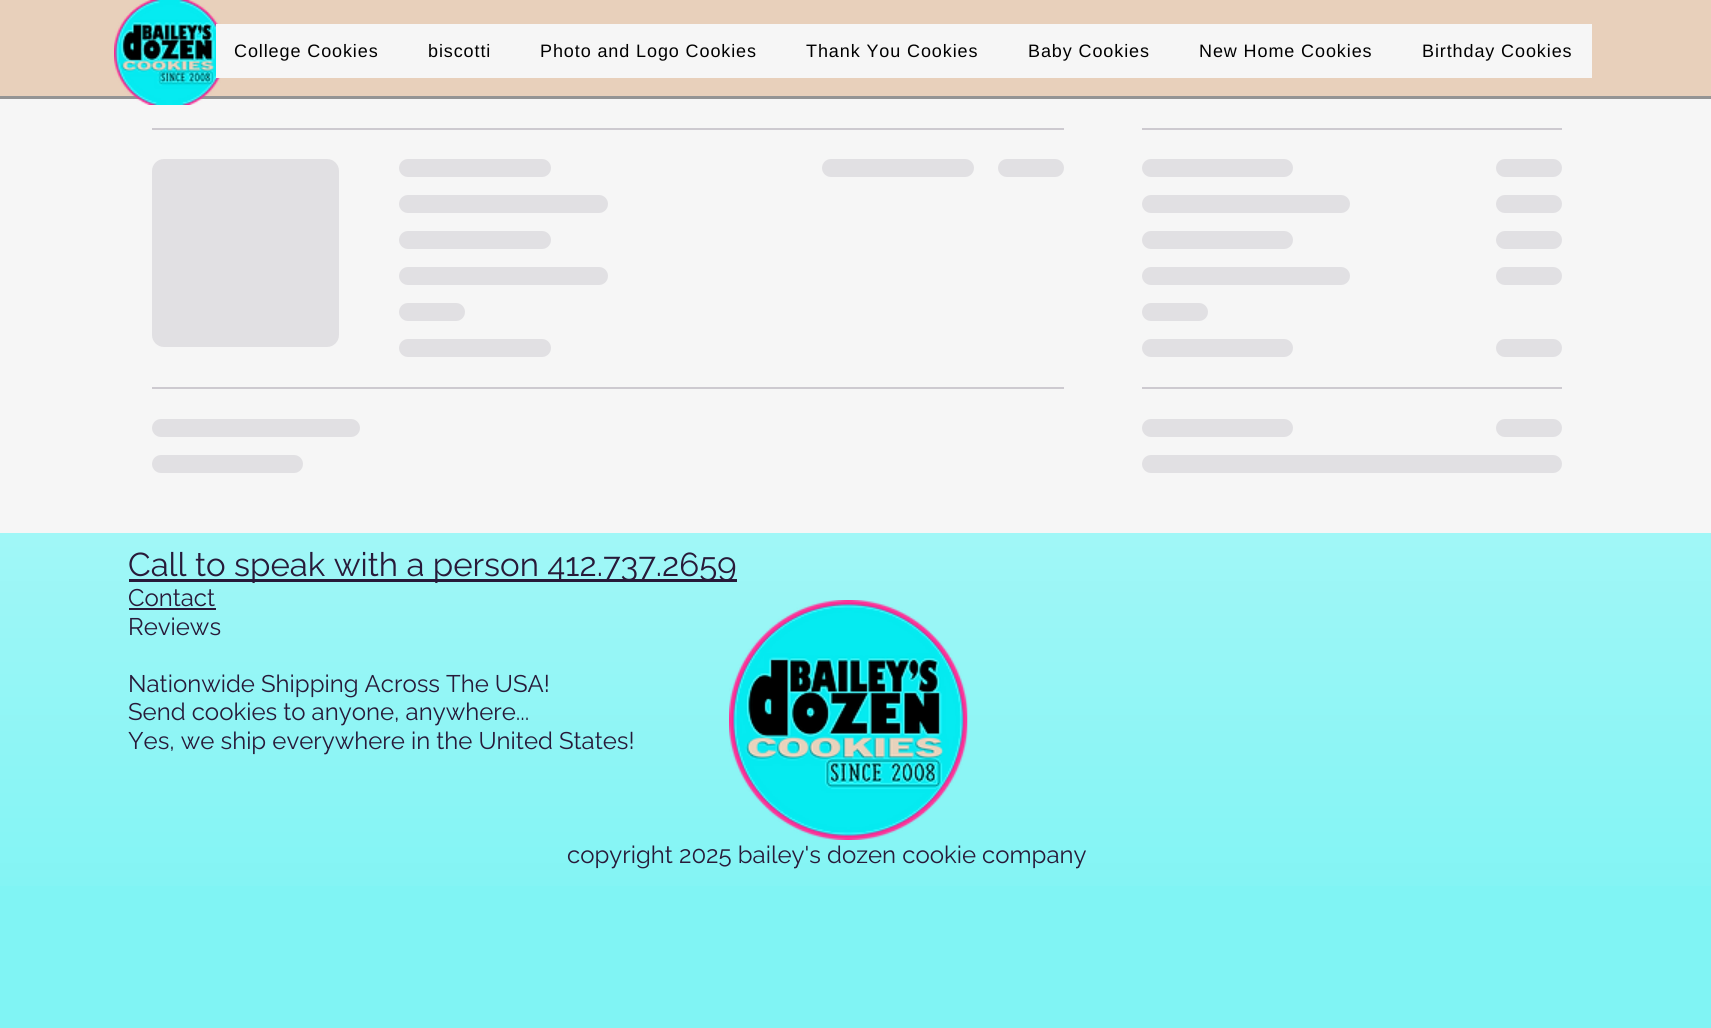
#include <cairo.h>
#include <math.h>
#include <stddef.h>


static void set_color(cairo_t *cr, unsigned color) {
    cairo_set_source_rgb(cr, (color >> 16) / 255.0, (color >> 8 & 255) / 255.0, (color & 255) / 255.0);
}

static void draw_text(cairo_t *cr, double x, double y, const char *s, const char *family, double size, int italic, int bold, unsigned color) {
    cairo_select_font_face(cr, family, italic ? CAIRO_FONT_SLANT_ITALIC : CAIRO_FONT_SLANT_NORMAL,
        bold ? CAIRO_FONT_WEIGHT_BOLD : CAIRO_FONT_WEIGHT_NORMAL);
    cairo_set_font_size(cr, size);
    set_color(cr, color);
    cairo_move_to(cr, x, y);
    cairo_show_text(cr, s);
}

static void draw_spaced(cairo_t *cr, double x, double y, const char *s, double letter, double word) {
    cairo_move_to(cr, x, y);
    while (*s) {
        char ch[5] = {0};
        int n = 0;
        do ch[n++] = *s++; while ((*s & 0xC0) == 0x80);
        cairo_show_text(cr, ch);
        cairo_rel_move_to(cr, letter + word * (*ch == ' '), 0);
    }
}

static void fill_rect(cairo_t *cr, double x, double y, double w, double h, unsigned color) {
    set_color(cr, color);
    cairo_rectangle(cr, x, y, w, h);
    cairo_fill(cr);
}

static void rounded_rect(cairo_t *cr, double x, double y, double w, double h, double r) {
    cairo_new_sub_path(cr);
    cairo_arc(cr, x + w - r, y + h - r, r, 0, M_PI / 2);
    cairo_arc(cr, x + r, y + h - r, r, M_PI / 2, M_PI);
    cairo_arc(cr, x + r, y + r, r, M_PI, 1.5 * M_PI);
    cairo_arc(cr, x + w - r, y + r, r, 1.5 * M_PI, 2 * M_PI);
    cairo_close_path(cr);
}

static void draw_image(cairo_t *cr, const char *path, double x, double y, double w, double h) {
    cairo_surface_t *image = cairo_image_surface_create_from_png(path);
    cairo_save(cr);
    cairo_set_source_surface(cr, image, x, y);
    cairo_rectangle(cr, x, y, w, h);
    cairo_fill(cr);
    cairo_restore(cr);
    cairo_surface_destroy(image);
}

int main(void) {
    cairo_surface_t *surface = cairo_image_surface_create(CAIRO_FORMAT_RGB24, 1711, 1028);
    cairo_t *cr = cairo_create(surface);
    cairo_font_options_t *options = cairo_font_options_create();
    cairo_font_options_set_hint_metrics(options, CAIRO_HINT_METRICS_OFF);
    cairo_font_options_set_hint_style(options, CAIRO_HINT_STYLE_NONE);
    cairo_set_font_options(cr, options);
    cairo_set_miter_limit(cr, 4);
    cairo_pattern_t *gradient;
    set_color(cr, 0xF6F6F6);
    cairo_paint(cr);
    fill_rect(cr, 0, 96, 1711, 3, 0x949494);
    fill_rect(cr, 0, 0, 1711, 96, 0xE8D0BB);
    draw_image(cr, "assets/img1.png", 114, 0, 107, 105);
    fill_rect(cr, 216, 24, 1376, 54, 0xF6F6F6);
    cairo_select_font_face(cr, "Liberation Sans", CAIRO_FONT_SLANT_NORMAL, CAIRO_FONT_WEIGHT_NORMAL);
    cairo_set_font_size(cr, 18);
    set_color(cr, 0x000000);
    draw_spaced(cr, 234, 57, "College Cookies", 0.9, 0);
    draw_spaced(cr, 428, 57, "biscotti", 0.9, 0);
    draw_spaced(cr, 540, 57, "Photo and Logo Cookies", 0.9, 0);
    draw_spaced(cr, 806, 57, "Thank You Cookies", 0.9, 0);
    draw_spaced(cr, 1028, 57, "Baby Cookies", 0.9, 0);
    draw_spaced(cr, 1199, 57, "New Home Cookies", 0.9, 0);
    draw_spaced(cr, 1422, 57, "Birthday Cookies", 0.9, 0);
    fill_rect(cr, 152, 128, 912, 2, 0xCDCAD0);
    gradient = cairo_pattern_create_linear(152, 253, 902, 253);
    cairo_pattern_add_color_stop_rgba(gradient, 0.25, 0.882, 0.878, 0.89, 1);
    cairo_pattern_add_color_stop_rgba(gradient, 0.37, 0.804, 0.792, 0.816, 1);
    cairo_pattern_add_color_stop_rgba(gradient, 0.63, 0.882, 0.878, 0.89, 1);
    cairo_set_source(cr, gradient);
    cairo_pattern_destroy(gradient);
    rounded_rect(cr, 152, 159, 187, 188, 12);
    cairo_fill(cr);
    gradient = cairo_pattern_create_linear(399, 168, 1005, 168);
    cairo_pattern_add_color_stop_rgba(gradient, 0.25, 0.882, 0.878, 0.89, 1);
    cairo_pattern_add_color_stop_rgba(gradient, 0.37, 0.804, 0.792, 0.816, 1);
    cairo_pattern_add_color_stop_rgba(gradient, 0.63, 0.882, 0.878, 0.89, 1);
    cairo_set_source(cr, gradient);
    cairo_pattern_destroy(gradient);
    rounded_rect(cr, 399, 159, 152, 18, 9);
    cairo_fill(cr);
    gradient = cairo_pattern_create_linear(399, 204, 1233, 204);
    cairo_pattern_add_color_stop_rgba(gradient, 0.25, 0.882, 0.878, 0.89, 1);
    cairo_pattern_add_color_stop_rgba(gradient, 0.37, 0.804, 0.792, 0.816, 1);
    cairo_pattern_add_color_stop_rgba(gradient, 0.63, 0.882, 0.878, 0.89, 1);
    cairo_set_source(cr, gradient);
    cairo_pattern_destroy(gradient);
    rounded_rect(cr, 399, 195, 209, 18, 9);
    cairo_fill(cr);
    gradient = cairo_pattern_create_linear(399, 240, 1005, 240);
    cairo_pattern_add_color_stop_rgba(gradient, 0.25, 0.882, 0.878, 0.89, 1);
    cairo_pattern_add_color_stop_rgba(gradient, 0.37, 0.804, 0.792, 0.816, 1);
    cairo_pattern_add_color_stop_rgba(gradient, 0.63, 0.882, 0.878, 0.89, 1);
    cairo_set_source(cr, gradient);
    cairo_pattern_destroy(gradient);
    rounded_rect(cr, 399, 231, 152, 18, 9);
    cairo_fill(cr);
    gradient = cairo_pattern_create_linear(399, 276, 1233, 276);
    cairo_pattern_add_color_stop_rgba(gradient, 0.25, 0.882, 0.878, 0.89, 1);
    cairo_pattern_add_color_stop_rgba(gradient, 0.37, 0.804, 0.792, 0.816, 1);
    cairo_pattern_add_color_stop_rgba(gradient, 0.63, 0.882, 0.878, 0.89, 1);
    cairo_set_source(cr, gradient);
    cairo_pattern_destroy(gradient);
    rounded_rect(cr, 399, 267, 209, 18, 9);
    cairo_fill(cr);
    gradient = cairo_pattern_create_linear(399, 312, 663, 312);
    cairo_pattern_add_color_stop_rgba(gradient, 0.25, 0.882, 0.878, 0.89, 1);
    cairo_pattern_add_color_stop_rgba(gradient, 0.37, 0.804, 0.792, 0.816, 1);
    cairo_pattern_add_color_stop_rgba(gradient, 0.63, 0.882, 0.878, 0.89, 1);
    cairo_set_source(cr, gradient);
    cairo_pattern_destroy(gradient);
    rounded_rect(cr, 399, 303, 66, 18, 9);
    cairo_fill(cr);
    gradient = cairo_pattern_create_linear(399, 348, 1005, 348);
    cairo_pattern_add_color_stop_rgba(gradient, 0.25, 0.882, 0.878, 0.89, 1);
    cairo_pattern_add_color_stop_rgba(gradient, 0.37, 0.804, 0.792, 0.816, 1);
    cairo_pattern_add_color_stop_rgba(gradient, 0.63, 0.882, 0.878, 0.89, 1);
    cairo_set_source(cr, gradient);
    cairo_pattern_destroy(gradient);
    rounded_rect(cr, 399, 339, 152, 18, 9);
    cairo_fill(cr);
    gradient = cairo_pattern_create_linear(822, 168, 1428, 168);
    cairo_pattern_add_color_stop_rgba(gradient, 0.25, 0.882, 0.878, 0.89, 1);
    cairo_pattern_add_color_stop_rgba(gradient, 0.37, 0.804, 0.792, 0.816, 1);
    cairo_pattern_add_color_stop_rgba(gradient, 0.63, 0.882, 0.878, 0.89, 1);
    cairo_set_source(cr, gradient);
    cairo_pattern_destroy(gradient);
    rounded_rect(cr, 822, 159, 152, 18, 9);
    cairo_fill(cr);
    gradient = cairo_pattern_create_linear(998, 168, 1262, 168);
    cairo_pattern_add_color_stop_rgba(gradient, 0.25, 0.882, 0.878, 0.89, 1);
    cairo_pattern_add_color_stop_rgba(gradient, 0.37, 0.804, 0.792, 0.816, 1);
    cairo_pattern_add_color_stop_rgba(gradient, 0.63, 0.882, 0.878, 0.89, 1);
    cairo_set_source(cr, gradient);
    cairo_pattern_destroy(gradient);
    rounded_rect(cr, 998, 159, 66, 18, 9);
    cairo_fill(cr);
    fill_rect(cr, 152, 387, 912, 2, 0xCDCAD0);
    gradient = cairo_pattern_create_linear(152, 428, 986, 428);
    cairo_pattern_add_color_stop_rgba(gradient, 0.25, 0.882, 0.878, 0.89, 1);
    cairo_pattern_add_color_stop_rgba(gradient, 0.37, 0.804, 0.792, 0.816, 1);
    cairo_pattern_add_color_stop_rgba(gradient, 0.63, 0.882, 0.878, 0.89, 1);
    cairo_set_source(cr, gradient);
    cairo_pattern_destroy(gradient);
    rounded_rect(cr, 152, 419, 208, 18, 9);
    cairo_fill(cr);
    gradient = cairo_pattern_create_linear(152, 464, 758, 464);
    cairo_pattern_add_color_stop_rgba(gradient, 0.25, 0.882, 0.878, 0.89, 1);
    cairo_pattern_add_color_stop_rgba(gradient, 0.37, 0.804, 0.792, 0.816, 1);
    cairo_pattern_add_color_stop_rgba(gradient, 0.63, 0.882, 0.878, 0.89, 1);
    cairo_set_source(cr, gradient);
    cairo_pattern_destroy(gradient);
    rounded_rect(cr, 152, 455, 151, 18, 9);
    cairo_fill(cr);
    fill_rect(cr, 1142, 128, 420, 2, 0xCDCAD0);
    gradient = cairo_pattern_create_linear(1142, 168, 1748, 168);
    cairo_pattern_add_color_stop_rgba(gradient, 0.25, 0.882, 0.878, 0.89, 1);
    cairo_pattern_add_color_stop_rgba(gradient, 0.37, 0.804, 0.792, 0.816, 1);
    cairo_pattern_add_color_stop_rgba(gradient, 0.63, 0.882, 0.878, 0.89, 1);
    cairo_set_source(cr, gradient);
    cairo_pattern_destroy(gradient);
    rounded_rect(cr, 1142, 159, 151, 18, 9);
    cairo_fill(cr);
    gradient = cairo_pattern_create_linear(1496, 168, 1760, 168);
    cairo_pattern_add_color_stop_rgba(gradient, 0.25, 0.882, 0.878, 0.89, 1);
    cairo_pattern_add_color_stop_rgba(gradient, 0.37, 0.804, 0.792, 0.816, 1);
    cairo_pattern_add_color_stop_rgba(gradient, 0.63, 0.882, 0.878, 0.89, 1);
    cairo_set_source(cr, gradient);
    cairo_pattern_destroy(gradient);
    rounded_rect(cr, 1496, 159, 66, 18, 9);
    cairo_fill(cr);
    gradient = cairo_pattern_create_linear(1142, 204, 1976, 204);
    cairo_pattern_add_color_stop_rgba(gradient, 0.25, 0.882, 0.878, 0.89, 1);
    cairo_pattern_add_color_stop_rgba(gradient, 0.37, 0.804, 0.792, 0.816, 1);
    cairo_pattern_add_color_stop_rgba(gradient, 0.63, 0.882, 0.878, 0.89, 1);
    cairo_set_source(cr, gradient);
    cairo_pattern_destroy(gradient);
    rounded_rect(cr, 1142, 195, 208, 18, 9);
    cairo_fill(cr);
    gradient = cairo_pattern_create_linear(1496, 204, 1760, 204);
    cairo_pattern_add_color_stop_rgba(gradient, 0.25, 0.882, 0.878, 0.89, 1);
    cairo_pattern_add_color_stop_rgba(gradient, 0.37, 0.804, 0.792, 0.816, 1);
    cairo_pattern_add_color_stop_rgba(gradient, 0.63, 0.882, 0.878, 0.89, 1);
    cairo_set_source(cr, gradient);
    cairo_pattern_destroy(gradient);
    rounded_rect(cr, 1496, 195, 66, 18, 9);
    cairo_fill(cr);
    gradient = cairo_pattern_create_linear(1142, 240, 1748, 240);
    cairo_pattern_add_color_stop_rgba(gradient, 0.25, 0.882, 0.878, 0.89, 1);
    cairo_pattern_add_color_stop_rgba(gradient, 0.37, 0.804, 0.792, 0.816, 1);
    cairo_pattern_add_color_stop_rgba(gradient, 0.63, 0.882, 0.878, 0.89, 1);
    cairo_set_source(cr, gradient);
    cairo_pattern_destroy(gradient);
    rounded_rect(cr, 1142, 231, 151, 18, 9);
    cairo_fill(cr);
    gradient = cairo_pattern_create_linear(1496, 240, 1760, 240);
    cairo_pattern_add_color_stop_rgba(gradient, 0.25, 0.882, 0.878, 0.89, 1);
    cairo_pattern_add_color_stop_rgba(gradient, 0.37, 0.804, 0.792, 0.816, 1);
    cairo_pattern_add_color_stop_rgba(gradient, 0.63, 0.882, 0.878, 0.89, 1);
    cairo_set_source(cr, gradient);
    cairo_pattern_destroy(gradient);
    rounded_rect(cr, 1496, 231, 66, 18, 9);
    cairo_fill(cr);
    gradient = cairo_pattern_create_linear(1142, 276, 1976, 276);
    cairo_pattern_add_color_stop_rgba(gradient, 0.25, 0.882, 0.878, 0.89, 1);
    cairo_pattern_add_color_stop_rgba(gradient, 0.37, 0.804, 0.792, 0.816, 1);
    cairo_pattern_add_color_stop_rgba(gradient, 0.63, 0.882, 0.878, 0.89, 1);
    cairo_set_source(cr, gradient);
    cairo_pattern_destroy(gradient);
    rounded_rect(cr, 1142, 267, 208, 18, 9);
    cairo_fill(cr);
    gradient = cairo_pattern_create_linear(1496, 276, 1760, 276);
    cairo_pattern_add_color_stop_rgba(gradient, 0.25, 0.882, 0.878, 0.89, 1);
    cairo_pattern_add_color_stop_rgba(gradient, 0.37, 0.804, 0.792, 0.816, 1);
    cairo_pattern_add_color_stop_rgba(gradient, 0.63, 0.882, 0.878, 0.89, 1);
    cairo_set_source(cr, gradient);
    cairo_pattern_destroy(gradient);
    rounded_rect(cr, 1496, 267, 66, 18, 9);
    cairo_fill(cr);
    gradient = cairo_pattern_create_linear(1142, 312, 1406, 312);
    cairo_pattern_add_color_stop_rgba(gradient, 0.25, 0.882, 0.878, 0.89, 1);
    cairo_pattern_add_color_stop_rgba(gradient, 0.37, 0.804, 0.792, 0.816, 1);
    cairo_pattern_add_color_stop_rgba(gradient, 0.63, 0.882, 0.878, 0.89, 1);
    cairo_set_source(cr, gradient);
    cairo_pattern_destroy(gradient);
    rounded_rect(cr, 1142, 303, 66, 18, 9);
    cairo_fill(cr);
    gradient = cairo_pattern_create_linear(1142, 348, 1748, 348);
    cairo_pattern_add_color_stop_rgba(gradient, 0.25, 0.882, 0.878, 0.89, 1);
    cairo_pattern_add_color_stop_rgba(gradient, 0.37, 0.804, 0.792, 0.816, 1);
    cairo_pattern_add_color_stop_rgba(gradient, 0.63, 0.882, 0.878, 0.89, 1);
    cairo_set_source(cr, gradient);
    cairo_pattern_destroy(gradient);
    rounded_rect(cr, 1142, 339, 151, 18, 9);
    cairo_fill(cr);
    gradient = cairo_pattern_create_linear(1496, 348, 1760, 348);
    cairo_pattern_add_color_stop_rgba(gradient, 0.25, 0.882, 0.878, 0.89, 1);
    cairo_pattern_add_color_stop_rgba(gradient, 0.37, 0.804, 0.792, 0.816, 1);
    cairo_pattern_add_color_stop_rgba(gradient, 0.63, 0.882, 0.878, 0.89, 1);
    cairo_set_source(cr, gradient);
    cairo_pattern_destroy(gradient);
    rounded_rect(cr, 1496, 339, 66, 18, 9);
    cairo_fill(cr);
    fill_rect(cr, 1142, 387, 420, 2, 0xCDCAD0);
    gradient = cairo_pattern_create_linear(1142, 428, 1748, 428);
    cairo_pattern_add_color_stop_rgba(gradient, 0.25, 0.882, 0.878, 0.89, 1);
    cairo_pattern_add_color_stop_rgba(gradient, 0.37, 0.804, 0.792, 0.816, 1);
    cairo_pattern_add_color_stop_rgba(gradient, 0.63, 0.882, 0.878, 0.89, 1);
    cairo_set_source(cr, gradient);
    cairo_pattern_destroy(gradient);
    rounded_rect(cr, 1142, 419, 151, 18, 9);
    cairo_fill(cr);
    gradient = cairo_pattern_create_linear(1496, 428, 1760, 428);
    cairo_pattern_add_color_stop_rgba(gradient, 0.25, 0.882, 0.878, 0.89, 1);
    cairo_pattern_add_color_stop_rgba(gradient, 0.37, 0.804, 0.792, 0.816, 1);
    cairo_pattern_add_color_stop_rgba(gradient, 0.63, 0.882, 0.878, 0.89, 1);
    cairo_set_source(cr, gradient);
    cairo_pattern_destroy(gradient);
    rounded_rect(cr, 1496, 419, 66, 18, 9);
    cairo_fill(cr);
    gradient = cairo_pattern_create_linear(1142, 464, 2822, 463);
    cairo_pattern_add_color_stop_rgba(gradient, 0.25, 0.882, 0.878, 0.89, 1);
    cairo_pattern_add_color_stop_rgba(gradient, 0.37, 0.804, 0.792, 0.816, 1);
    cairo_pattern_add_color_stop_rgba(gradient, 0.63, 0.882, 0.878, 0.89, 1);
    cairo_set_source(cr, gradient);
    cairo_pattern_destroy(gradient);
    rounded_rect(cr, 1142, 455, 420, 18, 9);
    cairo_fill(cr);
    fill_rect(cr, 0, 533, 1711, 495, 0x80F4F4);
    draw_image(cr, "assets/img2.png", 0, 533, 1711, 353);
    fill_rect(cr, 129, 579, 608, 3, 0x281A39);
    draw_text(cr, 128, 576, "Call to speak with a person 412.737.2659", "Raleway", 33, 0, 0, 0x281A39);
    draw_text(cr, 128, 606, "Contact", "Raleway", 24, 0, 0, 0x281A39);
    fill_rect(cr, 129, 608, 87, 2, 0x281A39);
    draw_text(cr, 128, 635, "Reviews", "Raleway", 24, 0, 0, 0x281A39);
    draw_text(cr, 128, 692, "Nationwide Shipping Across The USA!", "Raleway", 24, 0, 0, 0x281A39);
    draw_text(cr, 128, 720, "Send cookies to anyone, anywhere...", "Raleway", 24, 0, 0, 0x281A39);
    draw_text(cr, 128, 749, "Yes, we ship everywhere in the United States!", "Raleway", 24, 0, 0, 0x281A39);
    draw_image(cr, "assets/img3.png", 729, 600, 239, 240);
    draw_text(cr, 567, 863, "copyright 2025 bailey's dozen cookie company", "Raleway", 24, 0, 0, 0x281A39);
    cairo_surface_write_to_png(surface, "output.png");
    cairo_font_options_destroy(options);
    cairo_destroy(cr);
    cairo_surface_destroy(surface);
    return 0;
}
